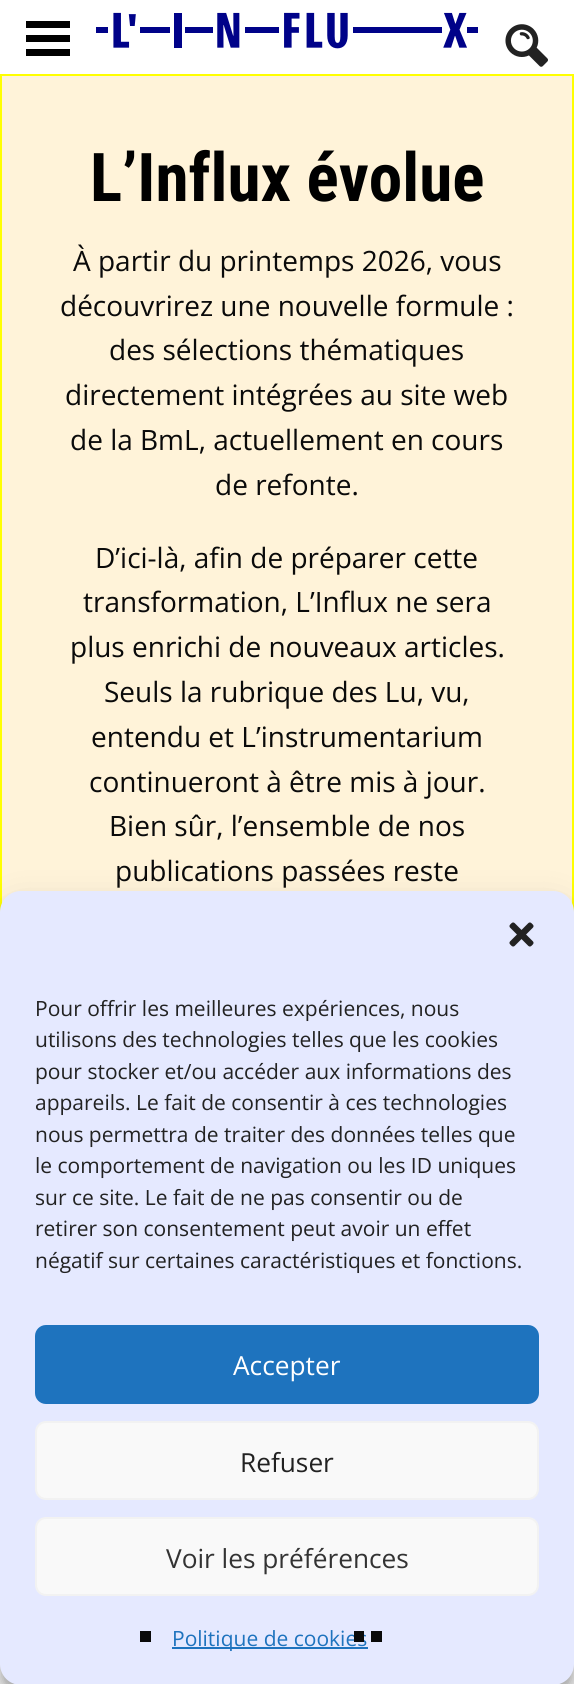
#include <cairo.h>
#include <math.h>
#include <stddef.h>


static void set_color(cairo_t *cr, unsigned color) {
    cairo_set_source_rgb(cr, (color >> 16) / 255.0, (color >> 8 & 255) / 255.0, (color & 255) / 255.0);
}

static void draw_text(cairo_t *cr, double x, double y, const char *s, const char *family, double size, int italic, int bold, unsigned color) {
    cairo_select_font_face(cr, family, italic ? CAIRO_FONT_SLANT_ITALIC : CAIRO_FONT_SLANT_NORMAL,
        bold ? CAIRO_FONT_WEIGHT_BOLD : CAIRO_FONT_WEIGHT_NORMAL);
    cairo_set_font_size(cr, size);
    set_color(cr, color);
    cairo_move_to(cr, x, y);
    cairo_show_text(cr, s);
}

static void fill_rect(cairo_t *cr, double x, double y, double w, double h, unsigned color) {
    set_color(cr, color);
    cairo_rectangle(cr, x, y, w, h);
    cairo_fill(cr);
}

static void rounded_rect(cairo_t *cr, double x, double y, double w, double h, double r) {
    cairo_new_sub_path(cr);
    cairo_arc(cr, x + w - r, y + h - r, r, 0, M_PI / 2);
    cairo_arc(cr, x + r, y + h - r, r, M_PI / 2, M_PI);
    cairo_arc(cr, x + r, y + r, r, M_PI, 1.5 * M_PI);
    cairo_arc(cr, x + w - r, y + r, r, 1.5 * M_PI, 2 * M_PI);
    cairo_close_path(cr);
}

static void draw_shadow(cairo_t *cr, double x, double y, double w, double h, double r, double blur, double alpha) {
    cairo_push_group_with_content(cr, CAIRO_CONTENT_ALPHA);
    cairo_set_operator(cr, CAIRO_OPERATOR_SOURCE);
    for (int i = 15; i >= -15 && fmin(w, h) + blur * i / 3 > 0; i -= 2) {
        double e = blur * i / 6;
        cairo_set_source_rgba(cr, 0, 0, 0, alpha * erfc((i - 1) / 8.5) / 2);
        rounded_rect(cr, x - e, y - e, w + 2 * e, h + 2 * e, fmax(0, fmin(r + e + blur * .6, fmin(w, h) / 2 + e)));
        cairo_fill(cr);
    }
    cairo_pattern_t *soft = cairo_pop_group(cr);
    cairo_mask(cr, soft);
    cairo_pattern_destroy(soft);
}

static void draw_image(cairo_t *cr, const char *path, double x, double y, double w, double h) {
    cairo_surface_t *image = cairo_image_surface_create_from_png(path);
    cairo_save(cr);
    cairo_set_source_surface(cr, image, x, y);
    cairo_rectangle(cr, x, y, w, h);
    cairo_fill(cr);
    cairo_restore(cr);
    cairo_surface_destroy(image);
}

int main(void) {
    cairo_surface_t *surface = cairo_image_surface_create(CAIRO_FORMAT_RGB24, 574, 1684);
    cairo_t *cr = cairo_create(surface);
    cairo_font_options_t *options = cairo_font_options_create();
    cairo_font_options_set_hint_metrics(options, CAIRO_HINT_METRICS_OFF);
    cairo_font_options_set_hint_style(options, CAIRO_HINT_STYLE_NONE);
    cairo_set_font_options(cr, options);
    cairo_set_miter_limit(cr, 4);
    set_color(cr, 0xFFFFFF);
    cairo_paint(cr);
    set_color(cr, 0x000000);
    cairo_set_fill_rule(cr, CAIRO_FILL_RULE_EVEN_ODD);
    cairo_new_path(cr);
    cairo_move_to(cr, 26, 21);
    cairo_line_to(cr, 70, 21);
    cairo_line_to(cr, 70, 28);
    cairo_line_to(cr, 26, 28);
    cairo_close_path(cr);
    cairo_move_to(cr, 26, 35);
    cairo_line_to(cr, 70, 35);
    cairo_line_to(cr, 70, 42);
    cairo_line_to(cr, 26, 42);
    cairo_close_path(cr);
    cairo_move_to(cr, 26, 49);
    cairo_line_to(cr, 70, 49);
    cairo_line_to(cr, 70, 56);
    cairo_line_to(cr, 26, 56);
    cairo_close_path(cr);
    cairo_fill(cr);
    draw_image(cr, "assets/img1.png", 96, 12, 382, 37);
    draw_image(cr, "assets/img2.png", 505, 24, 43, 43);
    fill_rect(cr, 2, 76, 570, 827, 0xFFF3D9);
    cairo_rectangle(cr, 1, 75, 572, 1111);
    set_color(cr, 0xFFFF00);
    cairo_stroke(cr);
    draw_text(cr, 90, 201, "L’Influx évolue", "Roboto Condensed", 67.25, 0, 1, 0x000000);
    draw_text(cr, 73, 271, "À partir du printemps 2026, vous", "Open Sans", 28, 0, 0, 0x0A0A0A);
    draw_text(cr, 60, 316, "découvrirez une nouvelle formule :", "Open Sans", 28, 0, 0, 0x0A0A0A);
    draw_text(cr, 109, 360, "des sélections thématiques", "Open Sans", 28, 0, 0, 0x0A0A0A);
    draw_text(cr, 65, 405, "directement intégrées au site web", "Open Sans", 28, 0, 0, 0x0A0A0A);
    draw_text(cr, 70, 450, "de la BmL, actuellement en cours", "Open Sans", 28, 0, 0, 0x0A0A0A);
    draw_text(cr, 215, 495, "de refonte.", "Open Sans", 28, 0, 0, 0x0A0A0A);
    draw_text(cr, 95, 568, "D’ici-là, afin de préparer cette", "Open Sans", 28, 0, 0, 0x0A0A0A);
    draw_text(cr, 83, 612, "transformation, L’Influx ne sera", "Open Sans", 28, 0, 0, 0x0A0A0A);
    draw_text(cr, 70, 657, "plus enrichi de nouveaux articles.", "Open Sans", 28, 0, 0, 0x0A0A0A);
    draw_text(cr, 104, 702, "Seuls la rubrique des Lu, vu,", "Open Sans", 28, 0, 0, 0x0A0A0A);
    draw_text(cr, 91, 747, "entendu et L’instrumentarium", "Open Sans", 28, 0, 0, 0x0A0A0A);
    draw_text(cr, 89, 792, "continueront à être mis à jour.", "Open Sans", 28, 0, 0, 0x0A0A0A);
    draw_text(cr, 109, 836, "Bien sûr, l’ensemble de nos", "Open Sans", 28, 0, 0, 0x0A0A0A);
    draw_text(cr, 115, 881, "publications passées reste", "Open Sans", 28, 0, 0, 0x0A0A0A);
    set_color(cr, 0x000000);
    draw_shadow(cr, 0, 901, 574, 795, 21, 5, 0.23);
    draw_shadow(cr, 0, 908, 574, 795, 21, 17.5, 0.19);
    set_color(cr, 0x808080);
    draw_shadow(cr, 452, 1556, 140, 105, 4, 4.5, 1);
    set_color(cr, 0xE5E9FF);
    rounded_rect(cr, 0, 891, 574, 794, 21);
    cairo_fill(cr);
    draw_image(cr, "assets/img3.png", 509, 922, 25, 25);
    draw_text(cr, 35, 1016, "Pour offrir les meilleures expériences, nous", "Open Sans", 21, 0, 0, 0x222222);
    draw_text(cr, 35, 1047, "utilisons des technologies telles que les cookies", "Open Sans", 21, 0, 0, 0x222222);
    draw_text(cr, 35, 1079, "pour stocker et/ou accéder aux informations des", "Open Sans", 21, 0, 0, 0x222222);
    draw_text(cr, 35, 1110, "appareils. Le fait de consentir à ces technologies", "Open Sans", 21, 0, 0, 0x222222);
    draw_text(cr, 35, 1142, "nous permettra de traiter des données telles que", "Open Sans", 21, 0, 0, 0x222222);
    draw_text(cr, 35, 1173, "le comportement de navigation ou les ID uniques", "Open Sans", 21, 0, 0, 0x222222);
    draw_text(cr, 35, 1205, "sur ce site. Le fait de ne pas consentir ou de", "Open Sans", 21, 0, 0, 0x222222);
    draw_text(cr, 35, 1236, "retirer son consentement peut avoir un effet", "Open Sans", 21, 0, 0, 0x222222);
    draw_text(cr, 35, 1268, "négatif sur certaines caractéristiques et fonctions.", "Open Sans", 21, 0, 0, 0x222222);
    set_color(cr, 0x1E73BE);
    rounded_rect(cr, 36, 1326, 502, 77, 10);
    cairo_fill_preserve(cr);
    cairo_stroke(cr);
    draw_text(cr, 233, 1375, "Accepter", "Open Sans", 26.25, 0, 0, 0xFFFFFF);
    set_color(cr, 0xF9F9F9);
    rounded_rect(cr, 36, 1422, 502, 77, 10);
    cairo_fill_preserve(cr);
    set_color(cr, 0xF2F2F2);
    cairo_stroke(cr);
    draw_text(cr, 240, 1472, "Refuser", "Open Sans", 26.25, 0, 0, 0x222222);
    set_color(cr, 0xF9F9F9);
    rounded_rect(cr, 36, 1518, 502, 77, 10);
    cairo_fill_preserve(cr);
    set_color(cr, 0xF2F2F2);
    cairo_stroke(cr);
    draw_text(cr, 166, 1568, "Voir les préférences", "Open Sans", 26.25, 0, 0, 0x333333);
    fill_rect(cr, 140, 1631, 11, 11, 0x0A0A0A);
    fill_rect(cr, 172, 1647, 196, 2, 0x1E73BE);
    draw_text(cr, 172, 1646, "Politique de cookies", "Open Sans", 21, 0, 0, 0x1E73BE);
    fill_rect(cr, 354, 1631, 10, 11, 0x0A0A0A);
    fill_rect(cr, 371, 1631, 11, 11, 0x0A0A0A);
    cairo_surface_write_to_png(surface, "output.png");
    cairo_font_options_destroy(options);
    cairo_destroy(cr);
    cairo_surface_destroy(surface);
    return 0;
}
